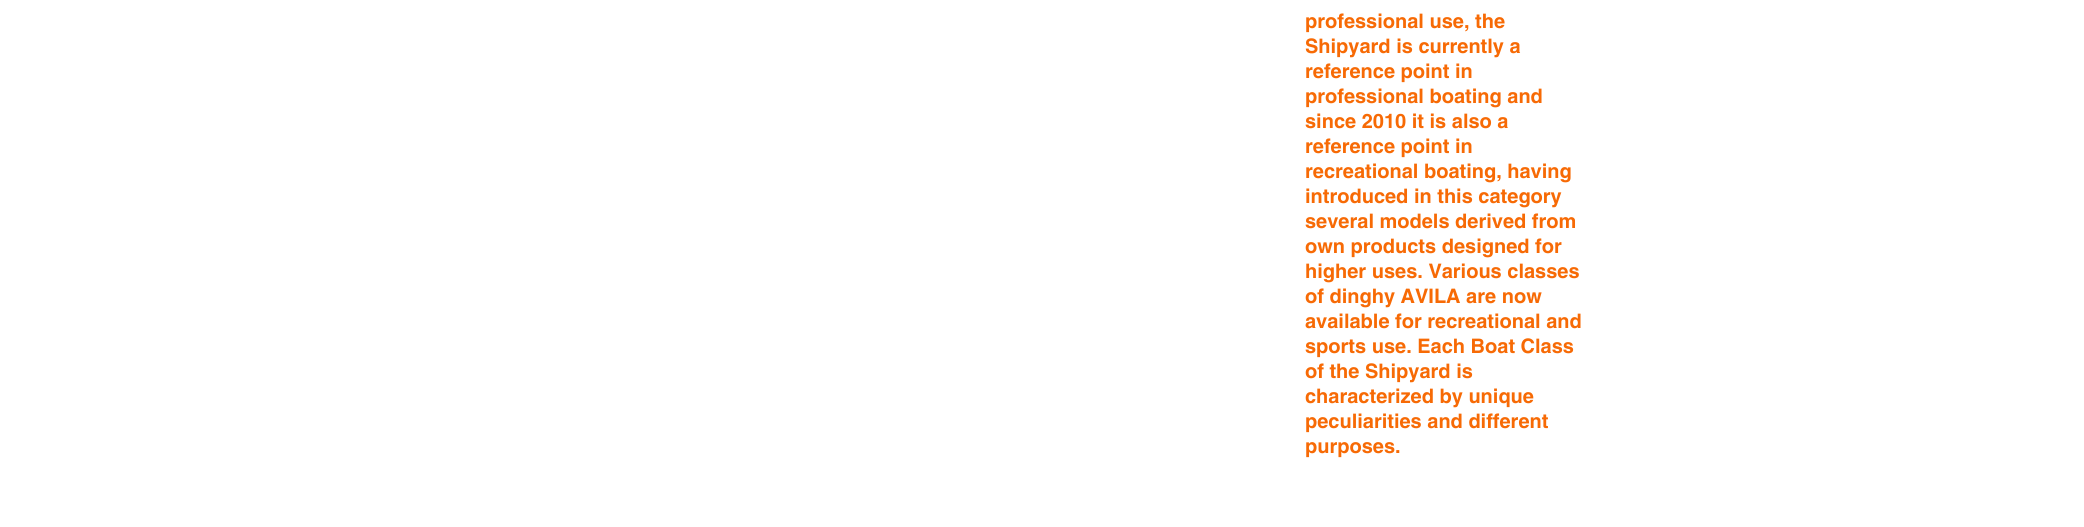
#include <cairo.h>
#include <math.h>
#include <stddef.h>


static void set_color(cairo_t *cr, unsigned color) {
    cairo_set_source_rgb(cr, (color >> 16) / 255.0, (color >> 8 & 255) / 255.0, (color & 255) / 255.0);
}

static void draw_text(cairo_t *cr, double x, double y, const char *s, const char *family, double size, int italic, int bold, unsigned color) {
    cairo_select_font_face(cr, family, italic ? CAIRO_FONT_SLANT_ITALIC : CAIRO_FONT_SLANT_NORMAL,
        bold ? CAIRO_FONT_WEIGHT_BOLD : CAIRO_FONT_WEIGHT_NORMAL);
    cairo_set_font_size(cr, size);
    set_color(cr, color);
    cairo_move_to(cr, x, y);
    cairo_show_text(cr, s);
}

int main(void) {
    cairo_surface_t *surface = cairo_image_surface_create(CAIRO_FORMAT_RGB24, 2084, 527);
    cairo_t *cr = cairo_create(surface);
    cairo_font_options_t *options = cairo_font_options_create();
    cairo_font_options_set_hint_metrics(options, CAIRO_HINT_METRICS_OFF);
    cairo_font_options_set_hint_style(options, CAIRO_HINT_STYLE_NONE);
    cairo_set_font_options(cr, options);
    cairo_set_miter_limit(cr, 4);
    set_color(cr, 0xFFFFFF);
    cairo_paint(cr);
    draw_text(cr, 1305, 28, "professional use, the", "helvetica", 20, 0, 1, 0xF76A05);
    draw_text(cr, 1305, 53, "Shipyard is currently a", "helvetica", 20, 0, 1, 0xF76A05);
    draw_text(cr, 1305, 78, "reference point in", "helvetica", 20, 0, 1, 0xF76A05);
    draw_text(cr, 1305, 103, "professional boating and", "helvetica", 20, 0, 1, 0xF76A05);
    draw_text(cr, 1305, 128, "since 2010 it is also a", "helvetica", 20, 0, 1, 0xF76A05);
    draw_text(cr, 1305, 153, "reference point in", "helvetica", 20, 0, 1, 0xF76A05);
    draw_text(cr, 1305, 178, "recreational boating, having", "helvetica", 20, 0, 1, 0xF76A05);
    draw_text(cr, 1305, 203, "introduced in this category", "helvetica", 20, 0, 1, 0xF76A05);
    draw_text(cr, 1305, 228, "several models derived from", "helvetica", 20, 0, 1, 0xF76A05);
    draw_text(cr, 1305, 253, "own products designed for", "helvetica", 20, 0, 1, 0xF76A05);
    draw_text(cr, 1305, 278, "higher uses. Various classes", "helvetica", 20, 0, 1, 0xF76A05);
    draw_text(cr, 1305, 303, "of dinghy AVILA are now", "helvetica", 20, 0, 1, 0xF76A05);
    draw_text(cr, 1305, 328, "available for recreational and", "helvetica", 20, 0, 1, 0xF76A05);
    draw_text(cr, 1305, 353, "sports use. Each Boat Class", "helvetica", 20, 0, 1, 0xF76A05);
    draw_text(cr, 1305, 378, "of the Shipyard is", "helvetica", 20, 0, 1, 0xF76A05);
    draw_text(cr, 1305, 403, "characterized by unique", "helvetica", 20, 0, 1, 0xF76A05);
    draw_text(cr, 1305, 428, "peculiarities and different", "helvetica", 20, 0, 1, 0xF76A05);
    draw_text(cr, 1305, 453, "purposes.", "helvetica", 20, 0, 1, 0xF76A05);
    cairo_surface_write_to_png(surface, "output.png");
    cairo_font_options_destroy(options);
    cairo_destroy(cr);
    cairo_surface_destroy(surface);
    return 0;
}
